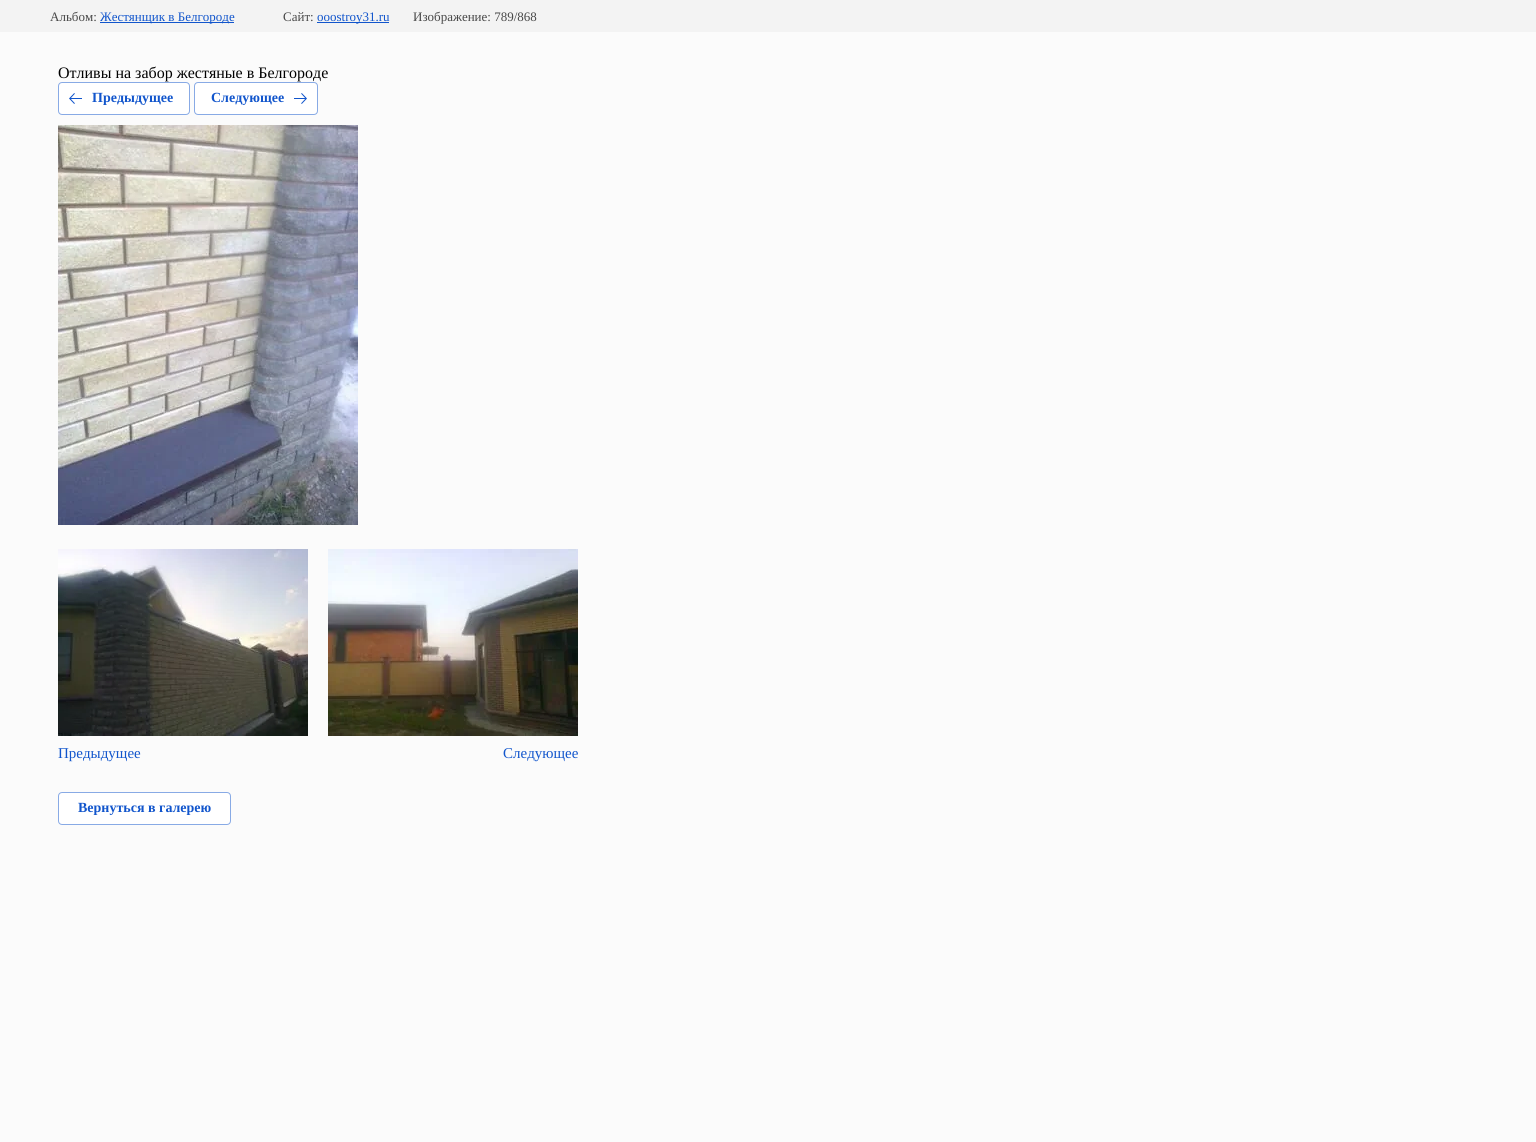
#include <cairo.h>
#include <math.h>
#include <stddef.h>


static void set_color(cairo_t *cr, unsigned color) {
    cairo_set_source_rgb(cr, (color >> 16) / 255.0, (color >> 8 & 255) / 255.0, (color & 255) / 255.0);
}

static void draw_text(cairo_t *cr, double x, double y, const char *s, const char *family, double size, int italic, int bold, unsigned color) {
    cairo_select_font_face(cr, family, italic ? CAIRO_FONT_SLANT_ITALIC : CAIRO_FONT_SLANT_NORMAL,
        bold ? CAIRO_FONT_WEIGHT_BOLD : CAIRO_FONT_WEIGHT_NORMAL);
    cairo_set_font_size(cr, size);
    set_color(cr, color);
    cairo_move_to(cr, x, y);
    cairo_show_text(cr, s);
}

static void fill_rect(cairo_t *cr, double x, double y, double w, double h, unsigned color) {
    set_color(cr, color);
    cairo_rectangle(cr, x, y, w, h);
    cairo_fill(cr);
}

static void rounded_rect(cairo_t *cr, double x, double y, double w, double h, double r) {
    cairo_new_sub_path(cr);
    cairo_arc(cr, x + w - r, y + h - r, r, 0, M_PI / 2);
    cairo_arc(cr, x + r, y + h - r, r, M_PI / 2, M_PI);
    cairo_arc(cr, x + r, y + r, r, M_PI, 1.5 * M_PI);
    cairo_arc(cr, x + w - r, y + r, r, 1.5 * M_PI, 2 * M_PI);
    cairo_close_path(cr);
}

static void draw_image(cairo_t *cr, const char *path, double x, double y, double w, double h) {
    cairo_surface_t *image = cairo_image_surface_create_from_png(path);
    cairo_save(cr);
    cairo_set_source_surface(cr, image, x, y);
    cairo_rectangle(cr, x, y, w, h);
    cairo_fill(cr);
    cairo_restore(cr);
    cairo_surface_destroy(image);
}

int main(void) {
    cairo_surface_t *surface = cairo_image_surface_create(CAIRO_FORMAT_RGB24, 1536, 1142);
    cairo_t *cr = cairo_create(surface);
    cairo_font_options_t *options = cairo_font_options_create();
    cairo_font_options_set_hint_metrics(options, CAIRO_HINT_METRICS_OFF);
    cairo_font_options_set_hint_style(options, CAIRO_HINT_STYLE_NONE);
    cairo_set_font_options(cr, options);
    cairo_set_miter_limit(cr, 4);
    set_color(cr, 0xFBFBFB);
    cairo_paint(cr);
    fill_rect(cr, 0, 0, 1536, 32, 0xF3F3F3);
    draw_text(cr, 50, 21, "Альбом:", "Liberation Serif", 13, 0, 0, 0x484848);
    fill_rect(cr, 100, 22, 134, 1, 0x1155CC);
    draw_text(cr, 100, 21, "Жестянщик в Белгороде", "Liberation Serif", 13, 0, 0, 0x1155CC);
    draw_text(cr, 283, 21, "Сайт:", "Liberation Serif", 13, 0, 0, 0x484848);
    fill_rect(cr, 317, 22, 72, 1, 0x1155CC);
    draw_text(cr, 317, 21, "ooostroy31.ru", "Liberation Serif", 13, 0, 0, 0x1155CC);
    draw_text(cr, 413, 21, "Изображение: 789/868", "Liberation Serif", 13, 0, 0, 0x484848);
    draw_text(cr, 58, 78, "Отливы на забор жестяные в Белгороде", "Liberation Serif", 16, 0, 0, 0x000000);
    set_color(cr, 0xFFFFFF);
    rounded_rect(cr, 58.5, 82.5, 131, 32, 3.5);
    cairo_fill_preserve(cr);
    set_color(cr, 0x88AAE5);
    cairo_set_line_width(cr, 1);
    cairo_stroke(cr);
    draw_image(cr, "assets/img1.png", 69, 93, 13, 11);
    draw_text(cr, 92, 102, "Предыдущее", "Liberation Serif", 14, 0, 1, 0x1155CC);
    set_color(cr, 0xFFFFFF);
    rounded_rect(cr, 194.5, 82.5, 123, 32, 3.5);
    cairo_fill_preserve(cr);
    set_color(cr, 0x88AAE5);
    cairo_stroke(cr);
    draw_text(cr, 211, 102, "Следующее", "Liberation Serif", 14, 0, 1, 0x1155CC);
    draw_image(cr, "assets/img2.png", 294, 93, 13, 11);
    draw_image(cr, "assets/img3.png", 58, 125, 300, 400);
    draw_image(cr, "assets/img4.png", 58, 549, 250, 187);
    draw_text(cr, 58, 758, "Предыдущее", "Liberation Serif", 15, 0, 0, 0x1155CC);
    draw_image(cr, "assets/img5.png", 328, 549, 250, 187);
    draw_text(cr, 503, 758, "Следующее", "Liberation Serif", 15, 0, 0, 0x1155CC);
    set_color(cr, 0xFFFFFF);
    rounded_rect(cr, 58.5, 792.5, 172, 32, 3.5);
    cairo_fill_preserve(cr);
    set_color(cr, 0x88AAE5);
    cairo_stroke(cr);
    draw_text(cr, 78, 812, "Вернуться в галерею", "Liberation Serif", 14, 0, 1, 0x1155CC);
    cairo_surface_write_to_png(surface, "output.png");
    cairo_font_options_destroy(options);
    cairo_destroy(cr);
    cairo_surface_destroy(surface);
    return 0;
}
